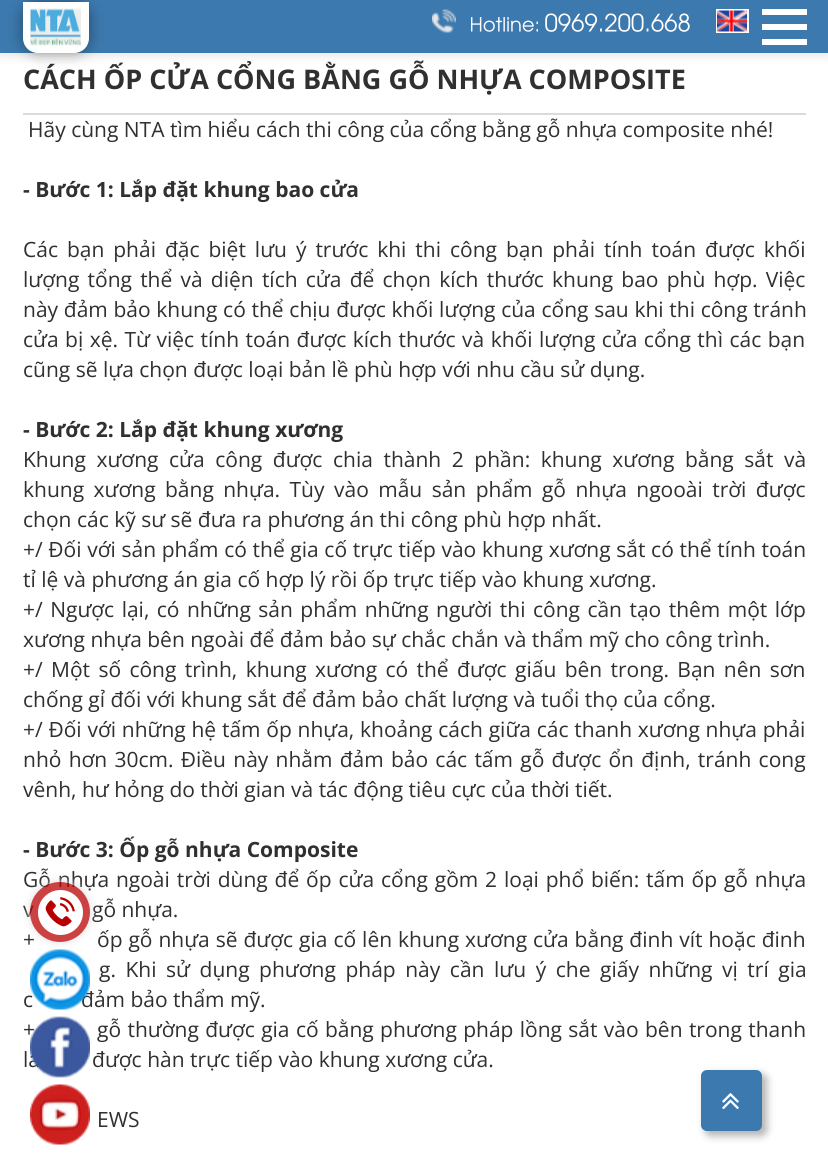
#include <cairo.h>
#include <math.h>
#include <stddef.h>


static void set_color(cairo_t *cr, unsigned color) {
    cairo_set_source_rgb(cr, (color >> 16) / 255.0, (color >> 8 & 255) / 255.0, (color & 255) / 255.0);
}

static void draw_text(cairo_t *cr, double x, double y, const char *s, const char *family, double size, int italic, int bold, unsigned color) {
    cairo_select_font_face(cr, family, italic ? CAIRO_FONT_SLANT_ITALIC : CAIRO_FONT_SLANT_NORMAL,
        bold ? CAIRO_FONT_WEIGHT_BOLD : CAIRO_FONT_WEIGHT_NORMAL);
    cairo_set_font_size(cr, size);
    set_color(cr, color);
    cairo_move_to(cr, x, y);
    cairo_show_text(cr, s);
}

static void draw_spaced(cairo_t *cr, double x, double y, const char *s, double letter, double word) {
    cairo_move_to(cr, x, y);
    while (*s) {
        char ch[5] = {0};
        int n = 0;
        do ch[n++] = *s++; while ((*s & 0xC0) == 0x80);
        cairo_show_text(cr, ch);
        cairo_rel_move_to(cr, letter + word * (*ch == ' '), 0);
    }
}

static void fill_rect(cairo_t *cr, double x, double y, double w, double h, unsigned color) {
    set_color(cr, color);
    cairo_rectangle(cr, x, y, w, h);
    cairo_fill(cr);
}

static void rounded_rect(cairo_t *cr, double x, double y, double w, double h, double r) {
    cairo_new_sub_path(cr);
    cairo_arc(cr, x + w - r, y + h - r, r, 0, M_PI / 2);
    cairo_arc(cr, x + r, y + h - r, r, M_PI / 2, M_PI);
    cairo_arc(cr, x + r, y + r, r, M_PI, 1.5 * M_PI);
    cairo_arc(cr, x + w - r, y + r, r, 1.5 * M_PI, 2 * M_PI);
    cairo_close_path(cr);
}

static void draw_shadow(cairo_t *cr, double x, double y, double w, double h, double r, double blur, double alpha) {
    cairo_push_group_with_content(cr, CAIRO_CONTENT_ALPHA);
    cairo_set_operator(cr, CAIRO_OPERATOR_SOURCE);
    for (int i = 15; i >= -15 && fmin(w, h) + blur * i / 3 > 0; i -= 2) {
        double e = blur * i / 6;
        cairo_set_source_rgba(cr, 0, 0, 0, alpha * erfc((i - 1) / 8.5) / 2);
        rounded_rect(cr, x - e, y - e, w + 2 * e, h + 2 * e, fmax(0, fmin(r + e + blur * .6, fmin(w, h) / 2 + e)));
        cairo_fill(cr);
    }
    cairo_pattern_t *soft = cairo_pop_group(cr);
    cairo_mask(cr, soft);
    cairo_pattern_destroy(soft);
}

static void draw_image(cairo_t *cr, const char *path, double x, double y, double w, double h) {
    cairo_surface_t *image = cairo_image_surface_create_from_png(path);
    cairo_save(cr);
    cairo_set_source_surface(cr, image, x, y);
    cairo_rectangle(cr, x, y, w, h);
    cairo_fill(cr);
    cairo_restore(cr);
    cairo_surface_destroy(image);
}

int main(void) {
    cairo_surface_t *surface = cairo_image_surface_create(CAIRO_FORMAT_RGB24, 828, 1174);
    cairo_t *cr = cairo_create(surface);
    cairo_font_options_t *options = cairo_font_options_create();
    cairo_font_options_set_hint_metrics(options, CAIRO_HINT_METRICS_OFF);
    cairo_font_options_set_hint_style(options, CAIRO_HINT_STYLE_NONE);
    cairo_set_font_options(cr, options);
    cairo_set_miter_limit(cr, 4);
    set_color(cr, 0xFFFFFF);
    cairo_paint(cr);
    set_color(cr, 0x000000);
    draw_shadow(cr, 0, 3, 828, 53, 0, 5, 0.1);
    fill_rect(cr, 0, 0, 828, 53, 0x3C79AE);
    draw_image(cr, "assets/img1.png", 432, 9, 24, 24);
    draw_image(cr, "assets/img2.png", 471, 17, 67, 15);
    draw_image(cr, "assets/img3.png", 545, 13, 145, 19);
    cairo_rectangle(cr, 717, 10, 31, 22);
    set_color(cr, 0xFFFFFF);
    cairo_stroke(cr);
    draw_image(cr, "assets/img4.png", 717, 10, 30, 22);
    set_color(cr, 0x000000);
    draw_shadow(cr, 23, 2, 66, 51, 15, 7.5, 0.4);
    set_color(cr, 0xFFFFFF);
    cairo_new_path(cr);
    cairo_move_to(cr, 23, 2);
    cairo_line_to(cr, 89, 2);
    cairo_line_to(cr, 89, 38);
    cairo_curve_to(cr, 89, 46.5, 82.5, 53, 74, 53);
    cairo_line_to(cr, 38, 53);
    cairo_curve_to(cr, 29.5, 53, 23, 46.5, 23, 38);
    cairo_close_path(cr);
    cairo_fill(cr);
    draw_image(cr, "assets/img5.png", 30, 8, 51, 38);
    fill_rect(cr, 762, 39, 45, 6, 0xFFFFFF);
    fill_rect(cr, 762, 9, 45, 6, 0xFFFFFF);
    fill_rect(cr, 762, 24, 45, 6, 0xFFFFFF);
    fill_rect(cr, 23, 113, 783, 2, 0xDADADA);
    draw_text(cr, 23, 89, "CÁCH ỐP CỬA CỔNG BẰNG GỖ NHỰA COMPOSITE", "Open Sans", 27, 0, 1, 0x303030);
    draw_text(cr, 28, 137, "Hãy cùng NTA tìm hiểu cách thi công của cổng bằng gỗ nhựa composite nhé!", "Open Sans", 21, 0, 0, 0x303030);
    draw_text(cr, 23, 197, "- Bước 1: Lắp đặt khung bao cửa", "Open Sans", 21, 0, 1, 0x303030);
    cairo_select_font_face(cr, "Open Sans", CAIRO_FONT_SLANT_NORMAL, CAIRO_FONT_WEIGHT_NORMAL);
    draw_spaced(cr, 23, 257, "Các bạn phải đặc biệt lưu ý trước khi thi công bạn phải tính toán được khối", 0, 3.5);
    draw_spaced(cr, 23, 287, "lượng tổng thể và diện tích cửa để chọn kích thước khung bao phù hợp. Việc", 0, 2.75);
    draw_spaced(cr, 23, 317, "này đảm bảo khung có thể chịu được khối lượng của cổng sau khi thi công tránh", 0, 0.25);
    draw_spaced(cr, 23, 347, "cửa bị xệ. Từ việc tính toán được kích thước và khối lượng cửa cổng thì các bạn", 0, 1);
    draw_text(cr, 23, 377, "cũng sẽ lựa chọn được loại bản lề phù hợp với nhu cầu sử dụng.", "Open Sans", 21, 0, 0, 0x303030);
    draw_text(cr, 23, 437, "- Bước 2: Lắp đặt khung xương", "Open Sans", 21, 0, 1, 0x303030);
    cairo_select_font_face(cr, "Open Sans", CAIRO_FONT_SLANT_NORMAL, CAIRO_FONT_WEIGHT_NORMAL);
    draw_spaced(cr, 23, 467, "Khung xương cửa công được chia thành 2 phần: khung xương bằng sắt và", 0, 5.1);
    draw_spaced(cr, 23, 497, "khung xương bằng nhựa. Tùy vào mẫu sản phẩm gỗ nhựa ngooài trời được", 0, 4);
    draw_text(cr, 23, 527, "chọn các kỹ sư sẽ đưa ra phương án thi công phù hợp nhất.", "Open Sans", 21, 0, 0, 0x303030);
    draw_spaced(cr, 23, 557, "+/ Đối với sản phẩm có thể gia cố trực tiếp vào khung xương sắt có thể tính toán", 0, 0.2);
    draw_text(cr, 23, 587, "tỉ lệ và phương án gia cố hợp lý rồi ốp trực tiếp vào khung xương.", "Open Sans", 21, 0, 0, 0x303030);
    draw_spaced(cr, 23, 617, "+/ Ngược lại, có những sản phẩm những người thi công cần tạo thêm một lớp", 0, 2);
    draw_text(cr, 23, 647, "xương nhựa bên ngoài để đảm bảo sự chắc chắn và thẩm mỹ cho công trình.", "Open Sans", 21, 0, 0, 0x303030);
    draw_spaced(cr, 23, 677, "+/ Một số công trình, khung xương có thể được giấu bên trong. Bạn nên sơn", 0, 2.9);
    draw_text(cr, 23, 707, "chống gỉ đối với khung sắt để đảm bảo chất lượng và tuổi thọ của cổng.", "Open Sans", 21, 0, 0, 0x303030);
    draw_spaced(cr, 23, 737, "+/ Đối với những hệ tấm ốp nhựa, khoảng cách giữa các thanh xương nhựa phải", 0, 0.3);
    draw_spaced(cr, 23, 767, "nhỏ hơn 30cm. Điều này nhằm đảm bảo các tấm gỗ được ổn định, tránh cong", 0, 1.8);
    draw_text(cr, 23, 797, "vênh, hư hỏng do thời gian và tác động tiêu cực của thời tiết.", "Open Sans", 21, 0, 0, 0x303030);
    draw_text(cr, 23, 857, "- Bước 3: Ốp gỗ nhựa Composite", "Open Sans", 21, 0, 1, 0x303030);
    cairo_select_font_face(cr, "Open Sans", CAIRO_FONT_SLANT_NORMAL, CAIRO_FONT_WEIGHT_NORMAL);
    draw_spaced(cr, 23, 887, "Gỗ nhựa ngoài trời dùng để ốp cửa cổng gồm 2 loại phổ biến: tấm ốp gỗ nhựa", 0, 1.4);
    draw_text(cr, 23, 917, "v", "Open Sans", 21, 0, 0, 0x303030);
    draw_text(cr, 92, 917, "gỗ nhựa.", "Open Sans", 21, 0, 0, 0x303030);
    draw_spaced(cr, 23, 947, "+", 0, 0.5);
    draw_spaced(cr, 97, 947, "ốp gỗ nhựa sẽ được gia cố lên khung xương cửa bằng đinh vít hoặc đinh", 0, 0.5);
    draw_spaced(cr, 99, 977, "g. Khi sử dụng phương pháp này cần lưu ý che giấy những vị trí gia", 0, 4.1);
    draw_text(cr, 23, 1007, "c", "Open Sans", 21, 0, 0, 0x303030);
    draw_text(cr, 81, 1007, "đảm bảo thẩm mỹ.", "Open Sans", 21, 0, 0, 0x303030);
    draw_spaced(cr, 23, 1037, "+", 0, 0.9);
    draw_spaced(cr, 97, 1037, "gỗ thường được gia cố bằng phương pháp lồng sắt vào bên trong thanh", 0, 0.9);
    draw_text(cr, 23, 1067, "la", "Open Sans", 21, 0, 0, 0x303030);
    draw_text(cr, 92, 1067, "được hàn trực tiếp vào khung xương cửa.", "Open Sans", 21, 0, 0, 0x303030);
    draw_text(cr, 97, 1127, "EWS", "Open Sans", 21, 0, 0, 0x303030);
    cairo_save(cr);
    cairo_set_fill_rule(cr, CAIRO_FILL_RULE_EVEN_ODD);
    cairo_new_path(cr);
    cairo_move_to(cr, 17, 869);
    cairo_line_to(cr, 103, 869);
    cairo_line_to(cr, 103, 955);
    cairo_line_to(cr, 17, 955);
    cairo_close_path(cr);
    cairo_move_to(cr, 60, 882);
    cairo_curve_to(cr, 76.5, 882, 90, 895.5, 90, 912);
    cairo_curve_to(cr, 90, 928.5, 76.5, 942, 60, 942);
    cairo_curve_to(cr, 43.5, 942, 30, 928.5, 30, 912);
    cairo_curve_to(cr, 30, 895.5, 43.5, 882, 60, 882);
    cairo_close_path(cr);
    cairo_clip(cr);
    set_color(cr, 0xDDDDDD);
    draw_shadow(cr, 30, 882, 60, 60, 30, 4, 1);
    cairo_restore(cr);
    cairo_set_source_rgba(cr, 0.718, 0.004, 0, 0.74);
    cairo_arc(cr, 60, 912, 30, 0, 2 * M_PI);
    cairo_fill(cr);
    set_color(cr, 0xFFFFFF);
    cairo_arc(cr, 60.5, 912.5, 22.5, 0, 2 * M_PI);
    cairo_fill(cr);
    draw_image(cr, "assets/img6.png", 45, 897, 30, 30);
    draw_image(cr, "assets/img7.png", 30, 949, 60, 61);
    draw_image(cr, "assets/img8.png", 30, 1016, 60, 62);
    draw_image(cr, "assets/img9.png", 30, 1084, 60, 61);
    set_color(cr, 0x000000);
    draw_shadow(cr, 705, 1074, 62, 62, 6, 4, 0.3);
    set_color(cr, 0x3C79AE);
    rounded_rect(cr, 701, 1070, 61, 61, 6);
    cairo_fill(cr);
    draw_image(cr, "assets/img10.png", 722, 1093, 17, 17);
    cairo_surface_write_to_png(surface, "output.png");
    cairo_font_options_destroy(options);
    cairo_destroy(cr);
    cairo_surface_destroy(surface);
    return 0;
}
